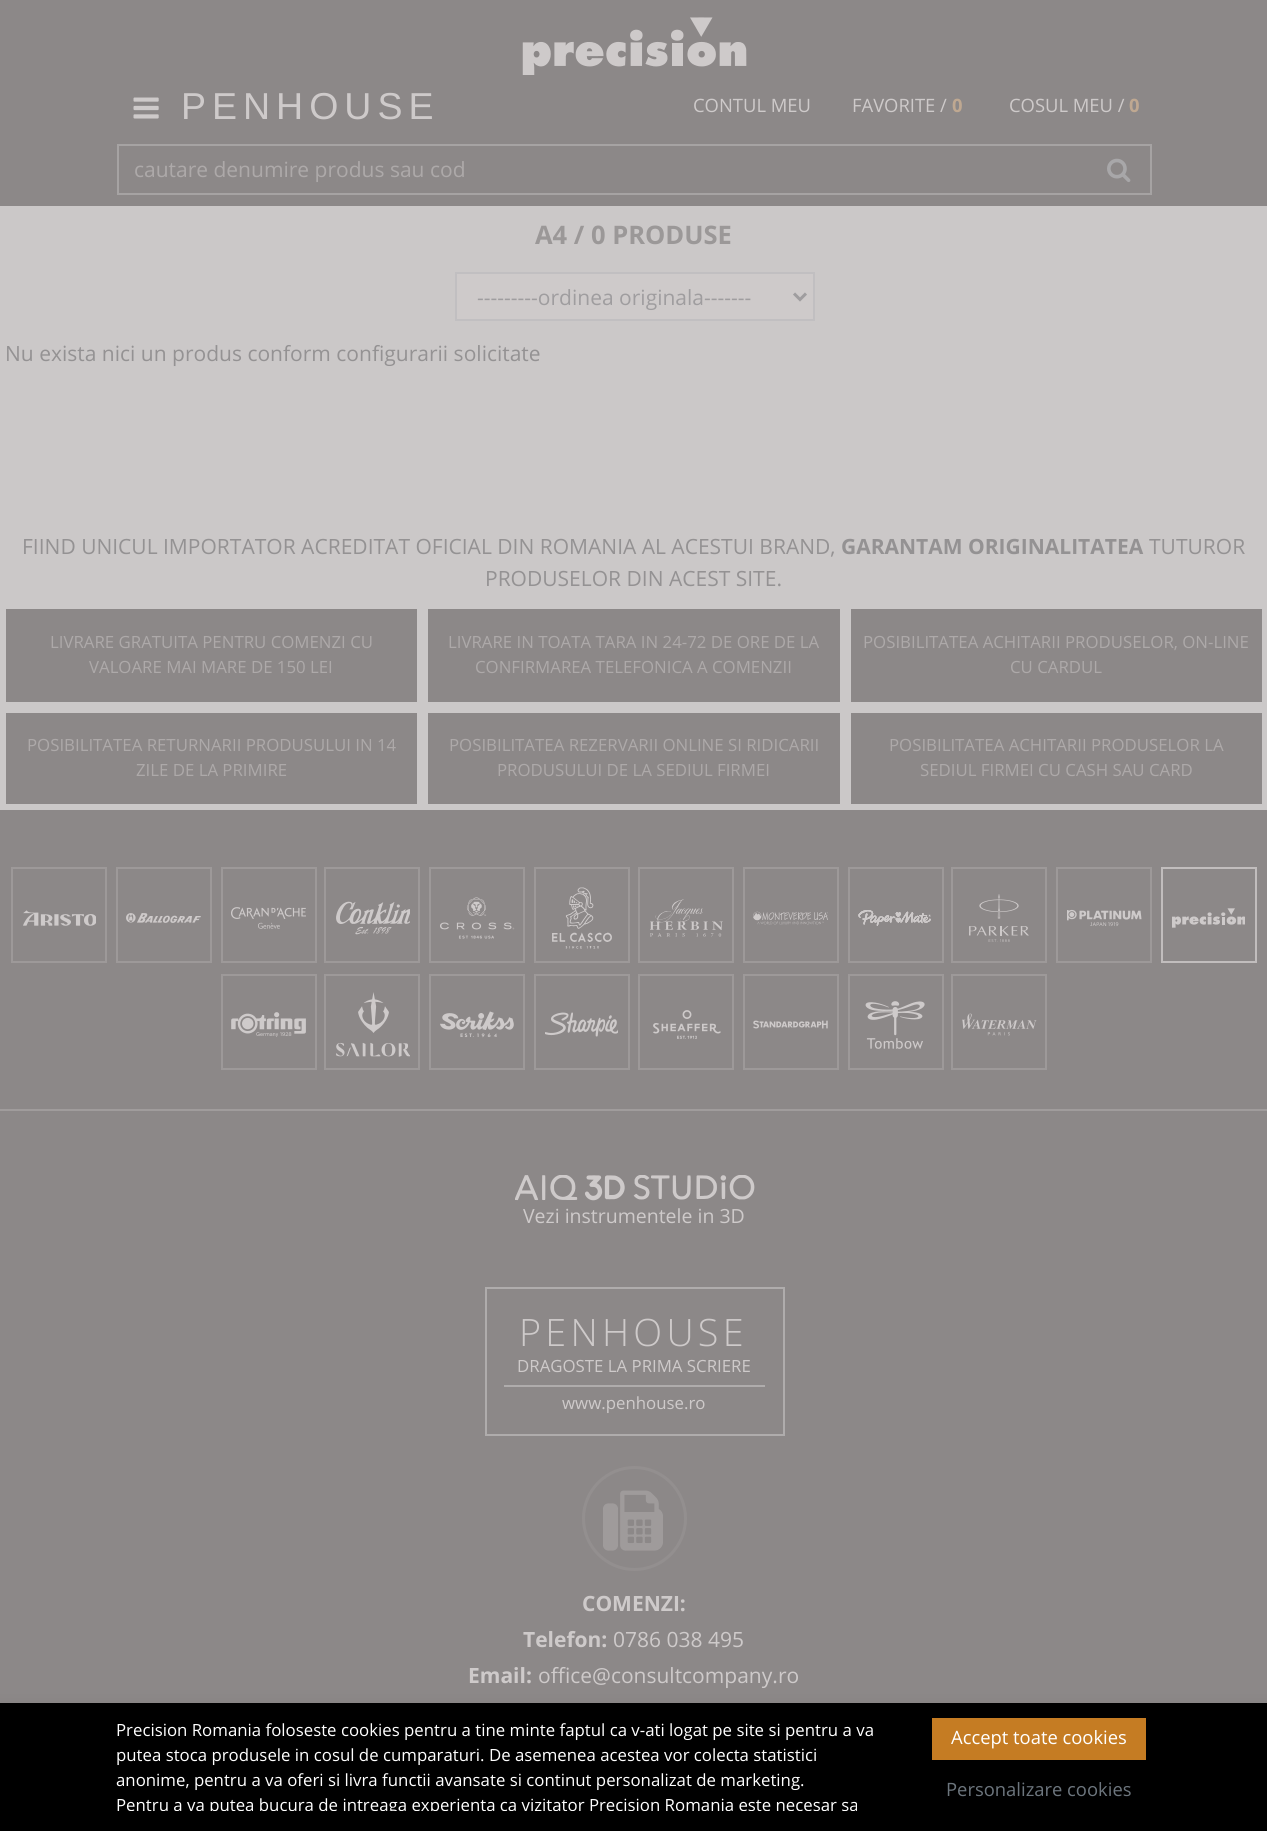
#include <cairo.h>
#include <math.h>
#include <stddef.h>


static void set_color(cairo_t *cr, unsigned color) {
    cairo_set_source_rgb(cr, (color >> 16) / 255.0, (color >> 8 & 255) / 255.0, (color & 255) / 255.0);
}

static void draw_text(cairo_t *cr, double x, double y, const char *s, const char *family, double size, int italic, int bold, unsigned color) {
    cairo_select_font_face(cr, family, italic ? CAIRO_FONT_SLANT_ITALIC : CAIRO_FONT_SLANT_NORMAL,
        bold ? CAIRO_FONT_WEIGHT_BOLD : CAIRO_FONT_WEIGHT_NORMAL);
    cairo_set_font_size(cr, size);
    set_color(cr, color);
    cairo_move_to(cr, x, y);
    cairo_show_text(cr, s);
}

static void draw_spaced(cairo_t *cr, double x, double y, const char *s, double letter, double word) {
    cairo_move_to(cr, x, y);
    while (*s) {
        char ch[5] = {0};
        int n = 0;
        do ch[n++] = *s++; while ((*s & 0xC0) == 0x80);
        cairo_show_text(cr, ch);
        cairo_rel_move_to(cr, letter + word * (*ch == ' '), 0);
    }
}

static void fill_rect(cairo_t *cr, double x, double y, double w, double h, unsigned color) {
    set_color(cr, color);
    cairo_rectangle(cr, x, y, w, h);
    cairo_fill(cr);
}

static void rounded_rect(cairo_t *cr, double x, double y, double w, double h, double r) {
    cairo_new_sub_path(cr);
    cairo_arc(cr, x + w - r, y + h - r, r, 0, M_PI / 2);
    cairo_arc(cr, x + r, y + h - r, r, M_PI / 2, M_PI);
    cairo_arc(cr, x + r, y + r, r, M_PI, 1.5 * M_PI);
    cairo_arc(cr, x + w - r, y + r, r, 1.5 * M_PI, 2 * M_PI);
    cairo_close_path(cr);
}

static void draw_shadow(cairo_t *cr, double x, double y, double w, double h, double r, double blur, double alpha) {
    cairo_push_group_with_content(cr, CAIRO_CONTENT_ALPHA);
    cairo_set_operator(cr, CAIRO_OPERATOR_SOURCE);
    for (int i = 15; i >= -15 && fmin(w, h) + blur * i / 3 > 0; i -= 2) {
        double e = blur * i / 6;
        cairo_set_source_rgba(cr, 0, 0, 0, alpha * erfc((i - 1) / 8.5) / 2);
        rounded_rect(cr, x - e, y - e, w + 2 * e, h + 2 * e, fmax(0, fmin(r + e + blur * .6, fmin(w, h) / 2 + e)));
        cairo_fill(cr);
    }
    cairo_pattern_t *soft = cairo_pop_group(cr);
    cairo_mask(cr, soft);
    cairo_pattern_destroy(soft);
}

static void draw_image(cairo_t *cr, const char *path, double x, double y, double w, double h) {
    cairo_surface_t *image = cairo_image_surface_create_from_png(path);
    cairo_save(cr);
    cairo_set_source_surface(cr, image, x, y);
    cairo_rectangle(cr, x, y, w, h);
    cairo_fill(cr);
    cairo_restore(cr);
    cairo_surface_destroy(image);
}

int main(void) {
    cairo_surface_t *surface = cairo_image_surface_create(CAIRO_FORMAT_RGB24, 1267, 1831);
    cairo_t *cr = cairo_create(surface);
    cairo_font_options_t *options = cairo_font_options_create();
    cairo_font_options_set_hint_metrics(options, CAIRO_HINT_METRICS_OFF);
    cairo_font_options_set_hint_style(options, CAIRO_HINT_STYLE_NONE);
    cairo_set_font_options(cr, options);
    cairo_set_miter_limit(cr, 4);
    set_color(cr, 0xCBC8C8);
    cairo_paint(cr);
    fill_rect(cr, 0, 0, 1267, 206, 0x8C8888);
    draw_image(cr, "assets/img1.png", 522, 17, 225, 58);
    draw_image(cr, "assets/img2.png", 133, 97, 26, 22);
    cairo_select_font_face(cr, "Liberation Sans", CAIRO_FONT_SLANT_NORMAL, CAIRO_FONT_WEIGHT_NORMAL);
    cairo_set_font_size(cr, 37.5);
    set_color(cr, 0xCECACA);
    draw_spaced(cr, 181, 119, "PENHOUSE", 6, 0);
    draw_text(cr, 693, 112, "CONTUL MEU", "Open Sans", 18.4, 0, 0, 0xCECACA);
    draw_text(cr, 852, 112, "FAVORITE /", "Open Sans", 18.4, 0, 0, 0xCECACA);
    draw_text(cr, 952, 112, "0", "Open Sans", 18.4, 0, 1, 0xBFA891);
    draw_text(cr, 1009, 112, "COSUL MEU /", "Open Sans", 18.4, 0, 0, 0xCECACA);
    draw_text(cr, 1129, 112, "0", "Open Sans", 18.4, 0, 1, 0xBFA891);
    cairo_rectangle(cr, 118, 145, 1033, 49);
    set_color(cr, 0xA6A3A3);
    cairo_stroke(cr);
    draw_text(cr, 134, 177, "cautare denumire produs sau cod", "Open Sans", 21, 0, 0, 0xADA9A9);
    draw_image(cr, "assets/img3.png", 1107, 158, 24, 25);
    draw_text(cr, 535, 244, "A4 / 0 PRODUSE", "Open Sans", 25.5, 0, 1, 0x9B9898);
    set_color(cr, 0xCECACA);
    cairo_rectangle(cr, 456, 273, 358, 47);
    cairo_fill_preserve(cr);
    set_color(cr, 0xC1BFC1);
    cairo_stroke(cr);
    cairo_new_path(cr);
    cairo_move_to(cr, 794, 293.5);
    cairo_line_to(cr, 800, 299.5);
    cairo_line_to(cr, 806, 293.5);
    set_color(cr, 0x9F9D9F);
    cairo_set_line_width(cr, 3);
    cairo_stroke(cr);
    draw_text(cr, 477, 305, "---------ordinea originala-------", "Open Sans", 21, 0, 0, 0x9F9D9F);
    draw_text(cr, 5, 361, "Nu exista nici un produs conform configurarii solicitate", "Open Sans", 21, 0, 0, 0x949293);
    draw_text(cr, 22, 554, "FIIND UNICUL IMPORTATOR ACREDITAT OFICIAL DIN ROMANIA AL ACESTUI BRAND,", "Open Sans", 21, 0, 0, 0x949293);
    draw_text(cr, 841, 554, "GARANTAM ORIGINALITATEA", "Open Sans", 21, 0, 1, 0x949293);
    draw_text(cr, 1149, 554, "TUTUROR", "Open Sans", 21, 0, 0, 0x949293);
    draw_text(cr, 485, 586, "PRODUSELOR DIN ACEST SITE.", "Open Sans", 21, 0, 0, 0x949293);
    fill_rect(cr, 6, 609, 411, 93, 0x8C8888);
    draw_text(cr, 50, 648, "LIVRARE GRATUITA PENTRU COMENZI CU", "Open Sans", 16.8, 0, 0, 0xADA9A9);
    draw_text(cr, 89, 673, "VALOARE MAI MARE DE 150 LEI", "Open Sans", 16.8, 0, 0, 0xADA9A9);
    fill_rect(cr, 428, 609, 412, 93, 0x8C8888);
    draw_text(cr, 448, 648, "LIVRARE IN TOATA TARA IN 24-72 DE ORE DE LA", "Open Sans", 16.8, 0, 0, 0xADA9A9);
    draw_text(cr, 475, 673, "CONFIRMAREA TELEFONICA A COMENZII", "Open Sans", 16.8, 0, 0, 0xADA9A9);
    fill_rect(cr, 851, 609, 411, 93, 0x8C8888);
    draw_text(cr, 863, 648, "POSIBILITATEA ACHITARII PRODUSELOR, ON-LINE", "Open Sans", 16.8, 0, 0, 0xADA9A9);
    draw_text(cr, 1010, 673, "CU CARDUL", "Open Sans", 16.8, 0, 0, 0xADA9A9);
    fill_rect(cr, 6, 713, 411, 91, 0x8C8888);
    draw_text(cr, 27, 751, "POSIBILITATEA RETURNARII PRODUSULUI IN 14", "Open Sans", 16.8, 0, 0, 0xADA9A9);
    draw_text(cr, 136, 776, "ZILE DE LA PRIMIRE", "Open Sans", 16.8, 0, 0, 0xADA9A9);
    fill_rect(cr, 428, 713, 412, 91, 0x8C8888);
    draw_text(cr, 449, 751, "POSIBILITATEA REZERVARII ONLINE SI RIDICARII", "Open Sans", 16.8, 0, 0, 0xADA9A9);
    draw_text(cr, 497, 776, "PRODUSULUI DE LA SEDIUL FIRMEI", "Open Sans", 16.8, 0, 0, 0xADA9A9);
    fill_rect(cr, 851, 713, 411, 91, 0x8C8888);
    draw_text(cr, 889, 751, "POSIBILITATEA ACHITARII PRODUSELOR LA", "Open Sans", 16.8, 0, 0, 0xADA9A9);
    draw_text(cr, 920, 776, "SEDIUL FIRMEI CU CASH SAU CARD", "Open Sans", 16.8, 0, 0, 0xADA9A9);
    fill_rect(cr, 0, 810, 1267, 893, 0x8C8888);
    fill_rect(cr, 0, 1109, 1267, 2, 0xA09C9C);
    cairo_rectangle(cr, 12, 868, 94, 94);
    set_color(cr, 0x9D9999);
    cairo_set_line_width(cr, 2);
    cairo_stroke(cr);
    draw_image(cr, "assets/img4.png", 23, 910, 73, 16);
    cairo_rectangle(cr, 117, 868, 94, 94);
    cairo_stroke(cr);
    draw_image(cr, "assets/img5.png", 126, 913, 75, 10);
    cairo_rectangle(cr, 222, 868, 94, 94);
    cairo_stroke(cr);
    draw_image(cr, "assets/img6.png", 231, 907, 75, 22);
    cairo_rectangle(cr, 325, 868, 94, 94);
    cairo_stroke(cr);
    draw_image(cr, "assets/img7.png", 336, 901, 74, 34);
    cairo_rectangle(cr, 430, 868, 94, 94);
    cairo_stroke(cr);
    draw_image(cr, "assets/img8.png", 440, 897, 75, 42);
    cairo_rectangle(cr, 535, 868, 94, 94);
    cairo_stroke(cr);
    draw_image(cr, "assets/img9.png", 552, 887, 60, 62);
    cairo_rectangle(cr, 639, 868, 94, 94);
    cairo_stroke(cr);
    draw_image(cr, "assets/img10.png", 650, 899, 73, 38);
    cairo_rectangle(cr, 744, 868, 94, 94);
    cairo_stroke(cr);
    draw_image(cr, "assets/img11.png", 753, 911, 75, 14);
    cairo_rectangle(cr, 849, 868, 94, 94);
    cairo_stroke(cr);
    draw_image(cr, "assets/img12.png", 858, 910, 73, 16);
    cairo_rectangle(cr, 952, 868, 94, 94);
    cairo_stroke(cr);
    draw_image(cr, "assets/img13.png", 969, 894, 60, 48);
    cairo_rectangle(cr, 1057, 868, 94, 94);
    cairo_stroke(cr);
    draw_image(cr, "assets/img14.png", 1067, 909, 75, 18);
    cairo_rectangle(cr, 1162, 868, 94, 94);
    set_color(cr, 0xC1BDBD);
    cairo_stroke(cr);
    draw_image(cr, "assets/img15.png", 1172, 908, 73, 20);
    cairo_rectangle(cr, 222, 975, 94, 94);
    set_color(cr, 0x9D9999);
    cairo_stroke(cr);
    draw_image(cr, "assets/img16.png", 231, 1012, 75, 25);
    cairo_rectangle(cr, 325, 975, 94, 94);
    cairo_stroke(cr);
    draw_image(cr, "assets/img17.png", 336, 992, 74, 65);
    cairo_rectangle(cr, 430, 975, 94, 94);
    cairo_stroke(cr);
    draw_image(cr, "assets/img18.png", 440, 1011, 74, 27);
    cairo_rectangle(cr, 535, 975, 94, 94);
    cairo_stroke(cr);
    draw_image(cr, "assets/img19.png", 545, 1012, 73, 25);
    cairo_rectangle(cr, 639, 975, 94, 94);
    cairo_stroke(cr);
    draw_image(cr, "assets/img20.png", 653, 1010, 68, 29);
    cairo_rectangle(cr, 744, 975, 94, 94);
    cairo_stroke(cr);
    draw_image(cr, "assets/img21.png", 753, 1020, 75, 9);
    cairo_rectangle(cr, 849, 975, 94, 94);
    cairo_stroke(cr);
    draw_image(cr, "assets/img22.png", 865, 1001, 60, 48);
    cairo_rectangle(cr, 952, 975, 94, 94);
    cairo_stroke(cr);
    draw_image(cr, "assets/img23.png", 962, 1013, 75, 23);
    draw_image(cr, "assets/img24.png", 515, 1175, 240, 26);
    draw_text(cr, 523, 1223, "Vezi instrumentele in 3D", "Open Sans", 19.5, 0, 0, 0xCECACA);
    cairo_rectangle(cr, 486, 1288, 298, 147);
    set_color(cr, 0xAFACAC);
    cairo_stroke(cr);
    cairo_select_font_face(cr, "Open Sans Light", CAIRO_FONT_SLANT_NORMAL, CAIRO_FONT_WEIGHT_NORMAL);
    cairo_set_font_size(cr, 37.75);
    set_color(cr, 0xCECACA);
    draw_spaced(cr, 519, 1346, "PENHOUSE", 4.25, 0);
    fill_rect(cr, 504, 1385, 261, 2, 0xAFACAC);
    draw_text(cr, 517, 1372, "DRAGOSTE LA PRIMA SCRIERE", "Open Sans", 16.8, 0, 0, 0xCECACA);
    draw_text(cr, 562, 1409, "www.penhouse.ro", "Open Sans", 16.8, 0, 0, 0xCECACA);
    cairo_new_path(cr);
    cairo_arc(cr, 634.5, 1518.5, 51, 0, 2 * M_PI);
    set_color(cr, 0x938F8F);
    cairo_set_line_width(cr, 3);
    cairo_stroke(cr);
    draw_image(cr, "assets/img25.png", 603, 1490, 60, 61);
    draw_text(cr, 582, 1611, "COMENZI:", "Open Sans", 21, 0, 1, 0xCECACA);
    draw_text(cr, 523, 1647, "Telefon:", "Open Sans", 21, 0, 1, 0xCECACA);
    draw_text(cr, 613, 1647, "0786 038 495", "Open Sans", 21, 0, 0, 0xCECACA);
    draw_text(cr, 468, 1683, "Email:", "Open Sans", 21, 0, 1, 0xCECACA);
    draw_text(cr, 538, 1683, "office@consultcompany.ro", "Open Sans", 21, 0, 0, 0xCECACA);
    set_color(cr, 0x000000);
    draw_shadow(cr, 0, 1713, 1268, 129, 0, 10.5, 0.15);
    fill_rect(cr, 0, 1703, 1267, 128, 0x000000);
    draw_text(cr, 116, 1736, "Precision Romania foloseste cookies pentru a tine minte faptul ca v-ati logat pe site si pentru a va", "Open Sans", 16.8, 0, 0, 0xFFFFFF);
    draw_text(cr, 116, 1761, "putea stoca produsele in cosul de cumparaturi. De asemenea acestea vor colecta statistici", "Open Sans", 16.8, 0, 0, 0xFFFFFF);
    draw_text(cr, 116, 1786, "anonime, pentru a va oferi si livra functii avansate si continut personalizat de marketing.", "Open Sans", 16.8, 0, 0, 0xFFFFFF);
    cairo_save(cr);
    cairo_rectangle(cr, 95, 1718, 810, 93);
    cairo_clip(cr);
    draw_text(cr, 116, 1811, "Pentru a va putea bucura de intreaga experienta ca vizitator Precision Romania este necesar sa", "Open Sans", 16.8, 0, 0, 0xFFFFFF);
    cairo_restore(cr);
    fill_rect(cr, 932, 1718, 214, 42, 0xC57C23);
    draw_text(cr, 951, 1744, "Accept toate cookies", "Open Sans", 18.4, 0, 0, 0xFFFFFF);
    draw_text(cr, 946, 1796, "Personalizare cookies", "Open Sans", 18.4, 0, 0, 0x6C757D);
    cairo_surface_write_to_png(surface, "output.png");
    cairo_font_options_destroy(options);
    cairo_destroy(cr);
    cairo_surface_destroy(surface);
    return 0;
}
